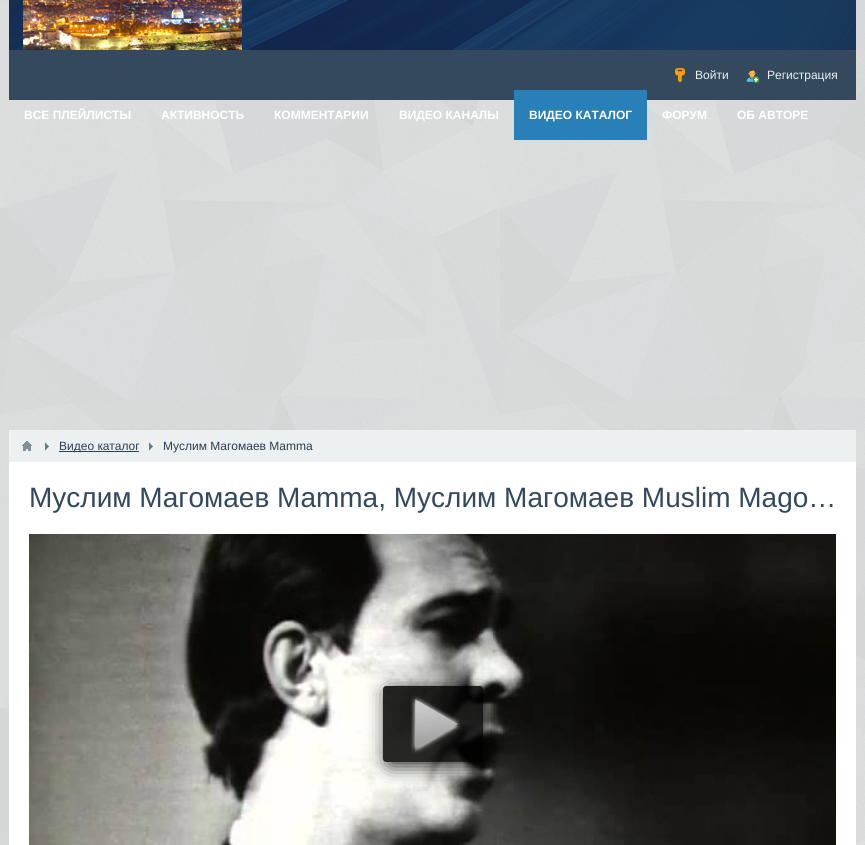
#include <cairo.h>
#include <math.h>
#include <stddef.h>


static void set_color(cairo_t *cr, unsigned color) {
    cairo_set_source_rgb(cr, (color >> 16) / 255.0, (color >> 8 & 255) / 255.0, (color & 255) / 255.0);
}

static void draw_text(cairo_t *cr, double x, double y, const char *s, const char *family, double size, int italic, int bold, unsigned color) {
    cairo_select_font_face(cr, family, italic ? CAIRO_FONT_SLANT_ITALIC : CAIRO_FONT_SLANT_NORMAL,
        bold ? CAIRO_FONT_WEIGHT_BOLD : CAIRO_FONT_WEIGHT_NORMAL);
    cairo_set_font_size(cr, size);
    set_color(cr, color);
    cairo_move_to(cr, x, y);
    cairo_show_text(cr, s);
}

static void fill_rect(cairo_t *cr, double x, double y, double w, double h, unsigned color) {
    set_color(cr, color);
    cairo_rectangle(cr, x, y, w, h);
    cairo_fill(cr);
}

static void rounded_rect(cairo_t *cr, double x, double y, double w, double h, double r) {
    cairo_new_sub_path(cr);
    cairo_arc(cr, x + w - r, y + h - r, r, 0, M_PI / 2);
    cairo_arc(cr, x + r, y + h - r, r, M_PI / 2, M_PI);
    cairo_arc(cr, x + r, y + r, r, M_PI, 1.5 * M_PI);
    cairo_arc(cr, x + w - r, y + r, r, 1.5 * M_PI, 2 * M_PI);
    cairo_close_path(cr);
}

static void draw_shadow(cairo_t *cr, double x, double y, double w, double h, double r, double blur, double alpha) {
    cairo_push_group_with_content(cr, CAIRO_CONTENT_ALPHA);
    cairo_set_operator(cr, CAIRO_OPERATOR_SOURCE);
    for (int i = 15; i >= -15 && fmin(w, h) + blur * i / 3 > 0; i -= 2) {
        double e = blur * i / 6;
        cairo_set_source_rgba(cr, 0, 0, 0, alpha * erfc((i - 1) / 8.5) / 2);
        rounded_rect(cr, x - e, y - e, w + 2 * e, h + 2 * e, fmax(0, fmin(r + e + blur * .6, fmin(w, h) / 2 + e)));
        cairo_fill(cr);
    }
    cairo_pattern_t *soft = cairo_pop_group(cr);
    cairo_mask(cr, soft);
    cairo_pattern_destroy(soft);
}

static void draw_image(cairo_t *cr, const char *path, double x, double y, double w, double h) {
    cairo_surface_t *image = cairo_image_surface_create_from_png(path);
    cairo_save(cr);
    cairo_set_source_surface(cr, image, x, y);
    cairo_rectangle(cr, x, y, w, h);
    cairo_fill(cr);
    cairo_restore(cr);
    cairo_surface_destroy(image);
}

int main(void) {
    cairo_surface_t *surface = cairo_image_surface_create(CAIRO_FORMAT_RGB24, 865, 845);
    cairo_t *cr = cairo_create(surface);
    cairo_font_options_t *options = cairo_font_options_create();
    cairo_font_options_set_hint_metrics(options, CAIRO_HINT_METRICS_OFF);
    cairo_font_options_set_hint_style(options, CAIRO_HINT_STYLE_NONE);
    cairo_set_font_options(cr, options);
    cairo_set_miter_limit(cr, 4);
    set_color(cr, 0xFFFFFF);
    cairo_paint(cr);
    draw_image(cr, "assets/img1.png", 0, 0, 865, 845);
    draw_image(cr, "assets/img2.png", 9, 0, 847, 50);
    draw_image(cr, "assets/img3.png", 23, 0, 219, 50);
    fill_rect(cr, 9, 50, 847, 50, 0x34495E);
    draw_image(cr, "assets/img4.png", 675, 68, 10, 14);
    draw_text(cr, 695, 79, "Войти", "Liberation Sans", 12, 0, 0, 0xECF0F1);
    draw_image(cr, "assets/img5.png", 746, 68, 14, 15);
    draw_text(cr, 767, 79, "Регистрация", "Liberation Sans", 12, 0, 0, 0xECF0F1);
    draw_text(cr, 24, 119, "ВСЕ ПЛЕЙЛИСТЫ", "Liberation Sans", 12, 0, 1, 0xFFFFFF);
    draw_text(cr, 161, 119, "АКТИВНОСТЬ", "Liberation Sans", 12, 0, 1, 0xFFFFFF);
    draw_text(cr, 274, 119, "КОММЕНТАРИИ", "Liberation Sans", 12, 0, 1, 0xFFFFFF);
    draw_text(cr, 399, 119, "ВИДЕО КАНАЛЫ", "Liberation Sans", 12, 0, 1, 0xFFFFFF);
    fill_rect(cr, 514, 90, 133, 50, 0x2980B9);
    draw_text(cr, 529, 119, "ВИДЕО КАТАЛОГ", "Liberation Sans", 12, 0, 1, 0xFFFFFF);
    draw_text(cr, 662, 119, "ФОРУМ", "Liberation Sans", 12, 0, 1, 0xFFFFFF);
    draw_text(cr, 737, 119, "ОБ АВТОРЕ", "Liberation Sans", 12, 0, 1, 0xFFFFFF);
    fill_rect(cr, 9, 462, 847, 383, 0xFFFFFF);
    fill_rect(cr, 9, 430, 847, 32, 0xECF0F1);
    draw_image(cr, "assets/img6.png", 22, 441, 10, 10);
    draw_image(cr, "assets/img7.png", 45, 442, 4, 9);
    fill_rect(cr, 59, 451, 80, 1, 0x2C3E50);
    draw_text(cr, 59, 450, "Видео каталог", "Liberation Sans", 12, 0, 0, 0x2C3E50);
    draw_image(cr, "assets/img7.png", 149, 442, 4, 9);
    draw_text(cr, 163, 450, "Муслим Магомаев Mamma", "Liberation Sans", 12, 0, 0, 0x2C3E50);
    draw_text(cr, 29, 507, "Муслим Магомаев Mamma, Муслим Магомаев Muslim Mago…", "Liberation Sans", 28, 0, 0, 0x34495E);
    draw_image(cr, "assets/img8.png", 29, 534, 807, 311);
    cairo_save(cr);
    cairo_set_fill_rule(cr, CAIRO_FILL_RULE_EVEN_ODD);
    cairo_new_path(cr);
    cairo_move_to(cr, 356, 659);
    cairo_line_to(cr, 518, 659);
    cairo_line_to(cr, 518, 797);
    cairo_line_to(cr, 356, 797);
    cairo_close_path(cr);
    cairo_move_to(cr, 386, 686);
    cairo_line_to(cr, 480, 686);
    cairo_curve_to(cr, 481.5, 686, 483, 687.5, 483, 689);
    cairo_line_to(cr, 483, 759);
    cairo_curve_to(cr, 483, 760.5, 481.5, 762, 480, 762);
    cairo_line_to(cr, 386, 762);
    cairo_curve_to(cr, 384.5, 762, 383, 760.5, 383, 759);
    cairo_line_to(cr, 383, 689);
    cairo_curve_to(cr, 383, 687.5, 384.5, 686, 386, 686);
    cairo_close_path(cr);
    cairo_clip(cr);
    set_color(cr, 0x000000);
    draw_shadow(cr, 387, 690, 100, 76, 3, 10, 0.85);
    cairo_restore(cr);
    cairo_set_source_rgba(cr, 0, 0, 0, 0.85);
    rounded_rect(cr, 383, 686, 100, 76, 3);
    cairo_fill(cr);
    draw_image(cr, "assets/img9.png", 411, 696, 50, 58);
    cairo_surface_write_to_png(surface, "output.png");
    cairo_font_options_destroy(options);
    cairo_destroy(cr);
    cairo_surface_destroy(surface);
    return 0;
}
